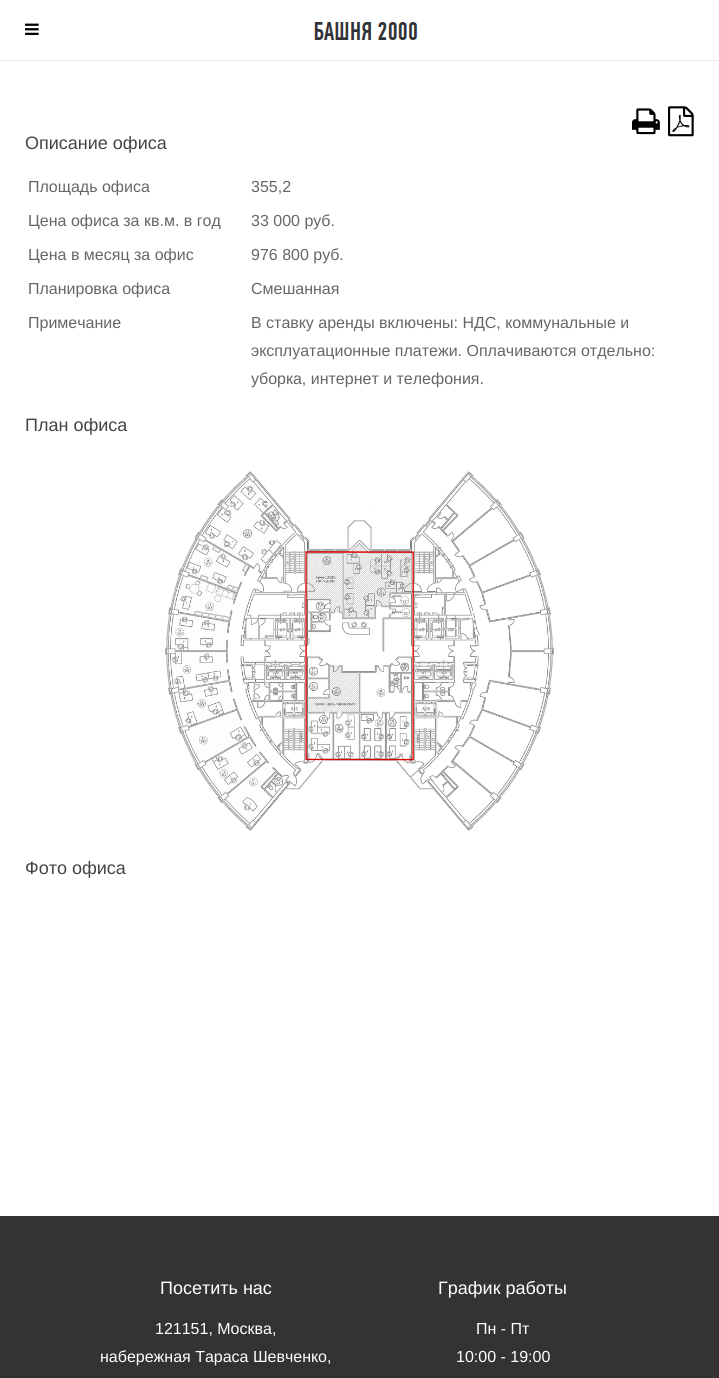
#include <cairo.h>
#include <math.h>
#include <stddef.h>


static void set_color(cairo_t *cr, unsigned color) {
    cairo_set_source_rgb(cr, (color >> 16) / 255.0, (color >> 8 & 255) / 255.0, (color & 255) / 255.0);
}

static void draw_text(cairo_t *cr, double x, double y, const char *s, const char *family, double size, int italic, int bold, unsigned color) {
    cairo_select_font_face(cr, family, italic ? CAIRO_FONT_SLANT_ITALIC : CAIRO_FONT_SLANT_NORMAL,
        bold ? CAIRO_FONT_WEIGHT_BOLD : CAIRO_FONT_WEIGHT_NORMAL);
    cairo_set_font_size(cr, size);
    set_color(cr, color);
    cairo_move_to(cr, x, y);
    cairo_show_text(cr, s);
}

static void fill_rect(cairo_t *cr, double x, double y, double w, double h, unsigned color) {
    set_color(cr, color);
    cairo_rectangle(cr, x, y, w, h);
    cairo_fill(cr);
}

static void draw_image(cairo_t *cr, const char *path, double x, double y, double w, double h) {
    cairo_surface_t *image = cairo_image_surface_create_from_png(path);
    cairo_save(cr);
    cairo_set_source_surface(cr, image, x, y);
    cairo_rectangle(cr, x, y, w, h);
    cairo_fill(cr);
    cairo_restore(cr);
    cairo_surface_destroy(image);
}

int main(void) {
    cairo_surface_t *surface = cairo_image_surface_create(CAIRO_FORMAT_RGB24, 719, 1378);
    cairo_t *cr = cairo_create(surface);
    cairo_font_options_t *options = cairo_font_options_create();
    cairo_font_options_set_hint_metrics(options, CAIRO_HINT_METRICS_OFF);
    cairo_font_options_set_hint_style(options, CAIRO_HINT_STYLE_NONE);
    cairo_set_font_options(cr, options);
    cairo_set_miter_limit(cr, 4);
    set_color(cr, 0xFFFFFF);
    cairo_paint(cr);
    fill_rect(cr, 0, 60, 719, 1, 0xEBEBEB);
    draw_image(cr, "assets/img1.png", 25, 23, 14, 12);
    draw_image(cr, "assets/img2.png", 314, 22, 104, 18);
    draw_image(cr, "assets/img3.png", 632, 108, 28, 27);
    draw_image(cr, "assets/img4.png", 668, 106, 26, 31);
    draw_text(cr, 25, 149, "Описание офиса", "Liberation Sans", 18, 0, 0, 0x444444);
    draw_text(cr, 28, 192, "Площадь офиса", "Liberation Sans", 16, 0, 0, 0x666666);
    draw_text(cr, 251, 192, "355,2", "Liberation Sans", 16, 0, 0, 0x666666);
    draw_text(cr, 28, 226, "Цена офиса за кв.м. в год", "Liberation Sans", 16, 0, 0, 0x666666);
    draw_text(cr, 251, 226, "33 000 руб.", "Liberation Sans", 16, 0, 0, 0x666666);
    draw_text(cr, 28, 260, "Цена в месяц за офис", "Liberation Sans", 16, 0, 0, 0x666666);
    draw_text(cr, 251, 260, "976 800 руб.", "Liberation Sans", 16, 0, 0, 0x666666);
    draw_text(cr, 28, 294, "Планировка офиса", "Liberation Sans", 16, 0, 0, 0x666666);
    draw_text(cr, 251, 294, "Смешанная", "Liberation Sans", 16, 0, 0, 0x666666);
    draw_text(cr, 28, 328, "Примечание", "Liberation Sans", 16, 0, 0, 0x666666);
    draw_text(cr, 251, 328, "В ставку аренды включены: НДС, коммунальные и", "Liberation Sans", 16, 0, 0, 0x666666);
    draw_text(cr, 251, 356, "эксплуатационные платежи. Оплачиваются отдельно:", "Liberation Sans", 16, 0, 0, 0x666666);
    draw_text(cr, 251, 384, "уборка, интернет и телефония.", "Liberation Sans", 16, 0, 0, 0x666666);
    draw_text(cr, 25, 431, "План офиса", "Liberation Sans", 18, 0, 0, 0x444444);
    draw_image(cr, "assets/img5.png", 165, 471, 389, 360);
    draw_text(cr, 25, 874, "Фото офиса", "Liberation Sans", 18, 0, 0, 0x444444);
    fill_rect(cr, 0, 1216, 719, 162, 0x333333);
    draw_text(cr, 160, 1294, "Посетить нас", "Liberation Sans", 18, 0, 0, 0xFFFFFF);
    draw_text(cr, 155, 1334, "121151, Москва,", "Liberation Sans", 16, 0, 0, 0xFFFFFF);
    draw_text(cr, 100, 1362, "набережная Тараса Шевченко,", "Liberation Sans", 16, 0, 0, 0xFFFFFF);
    draw_text(cr, 438, 1294, "График работы", "Liberation Sans", 18, 0, 0, 0xFFFFFF);
    draw_text(cr, 476, 1334, "Пн - Пт", "Liberation Sans", 16, 0, 0, 0xFFFFFF);
    draw_text(cr, 456, 1362, "10:00 - 19:00", "Liberation Sans", 16, 0, 0, 0xFFFFFF);
    cairo_surface_write_to_png(surface, "output.png");
    cairo_font_options_destroy(options);
    cairo_destroy(cr);
    cairo_surface_destroy(surface);
    return 0;
}
